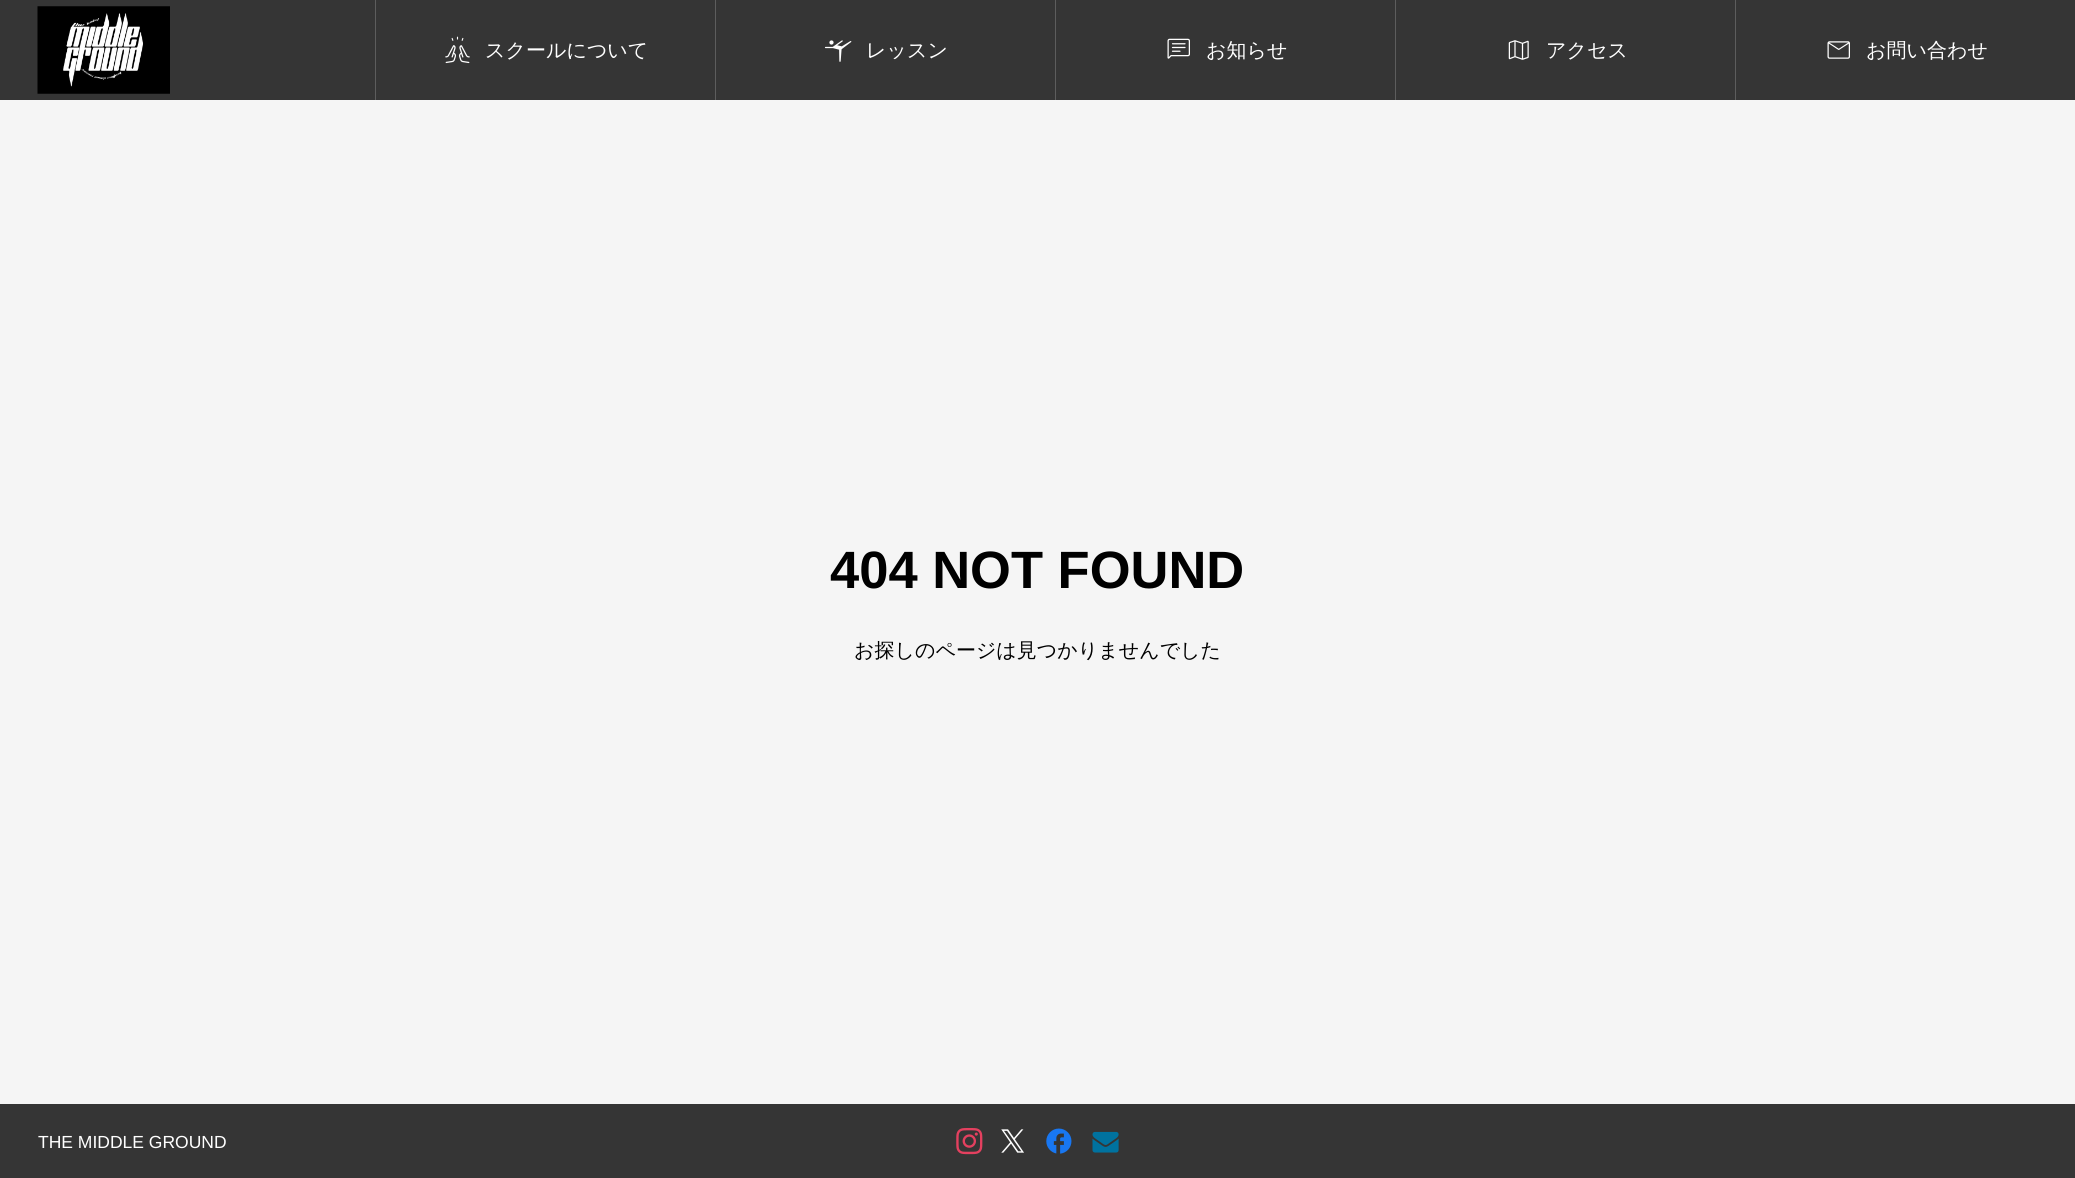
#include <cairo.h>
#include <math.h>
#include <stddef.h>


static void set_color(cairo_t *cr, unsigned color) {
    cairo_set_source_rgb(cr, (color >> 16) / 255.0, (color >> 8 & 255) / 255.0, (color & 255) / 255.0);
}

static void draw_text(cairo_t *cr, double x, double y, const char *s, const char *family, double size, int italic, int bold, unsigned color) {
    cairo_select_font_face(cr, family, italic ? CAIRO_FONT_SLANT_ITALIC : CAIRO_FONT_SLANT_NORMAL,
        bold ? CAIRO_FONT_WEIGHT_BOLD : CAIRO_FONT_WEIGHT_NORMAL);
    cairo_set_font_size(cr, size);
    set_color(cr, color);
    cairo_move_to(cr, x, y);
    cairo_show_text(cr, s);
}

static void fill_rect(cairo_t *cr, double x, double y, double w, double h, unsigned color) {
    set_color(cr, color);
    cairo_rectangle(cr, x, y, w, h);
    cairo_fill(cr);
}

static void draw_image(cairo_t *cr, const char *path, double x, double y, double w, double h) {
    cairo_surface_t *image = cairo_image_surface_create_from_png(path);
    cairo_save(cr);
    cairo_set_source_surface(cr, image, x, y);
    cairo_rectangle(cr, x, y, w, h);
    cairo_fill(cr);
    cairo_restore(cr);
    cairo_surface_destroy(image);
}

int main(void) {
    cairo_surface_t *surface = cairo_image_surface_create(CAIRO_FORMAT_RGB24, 2075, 1178);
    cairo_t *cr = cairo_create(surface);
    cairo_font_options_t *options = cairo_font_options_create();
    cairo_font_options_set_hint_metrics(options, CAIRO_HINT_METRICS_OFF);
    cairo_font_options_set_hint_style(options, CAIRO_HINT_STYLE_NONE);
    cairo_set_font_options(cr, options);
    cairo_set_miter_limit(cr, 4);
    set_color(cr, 0x353535);
    cairo_paint(cr);
    draw_image(cr, "assets/img1.png", 37, 6, 133, 88);
    fill_rect(cr, 375, 0, 1, 100, 0x5D5D5D);
    draw_image(cr, "assets/img2.png", 445, 36, 25, 28);
    draw_text(cr, 485, 57, "スクールについて", "WenQuanYi Zen Hei Medium", 20, 0, 0, 0xFFFFFF);
    fill_rect(cr, 715, 0, 1, 100, 0x5D5D5D);
    draw_image(cr, "assets/img3.png", 824, 40, 28, 22);
    draw_text(cr, 866, 57, "レッスン", "WenQuanYi Zen Hei Medium", 20, 0, 0, 0xFFFFFF);
    fill_rect(cr, 1055, 0, 1, 100, 0x5D5D5D);
    draw_image(cr, "assets/img4.png", 1167, 38, 23, 21);
    draw_text(cr, 1206, 57, "お知らせ", "WenQuanYi Zen Hei Medium", 20, 0, 0, 0xFFFFFF);
    fill_rect(cr, 1395, 0, 1, 100, 0x5D5D5D);
    draw_image(cr, "assets/img5.png", 1508, 40, 21, 20);
    draw_text(cr, 1546, 57, "アクセス", "WenQuanYi Zen Hei Medium", 20, 0, 0, 0xFFFFFF);
    fill_rect(cr, 1735, 0, 1, 100, 0x5D5D5D);
    draw_image(cr, "assets/img6.png", 1827, 41, 23, 18);
    draw_text(cr, 1866, 57, "お問い合わせ", "WenQuanYi Zen Hei Medium", 20, 0, 0, 0xFFFFFF);
    fill_rect(cr, 0, 100, 2075, 1004, 0xF5F5F5);
    draw_text(cr, 830, 588, "404 NOT FOUND", "Liberation Sans", 52.5, 0, 1, 0x000000);
    draw_text(cr, 854, 657, "お探しのページは見つかりませんでした", "WenQuanYi Zen Hei Medium", 20, 0, 0, 0x000000);
    draw_text(cr, 38, 1148, "THE MIDDLE GROUND", "Liberation Sans", 17.5, 0, 0, 0xFFFFFF);
    draw_image(cr, "assets/img7.png", 956, 1128, 27, 27);
    draw_image(cr, "assets/img8.png", 1001, 1129, 23, 24);
    draw_image(cr, "assets/img9.png", 1046, 1128, 26, 26);
    draw_image(cr, "assets/img10.png", 1092, 1131, 27, 22);
    cairo_surface_write_to_png(surface, "output.png");
    cairo_font_options_destroy(options);
    cairo_destroy(cr);
    cairo_surface_destroy(surface);
    return 0;
}
